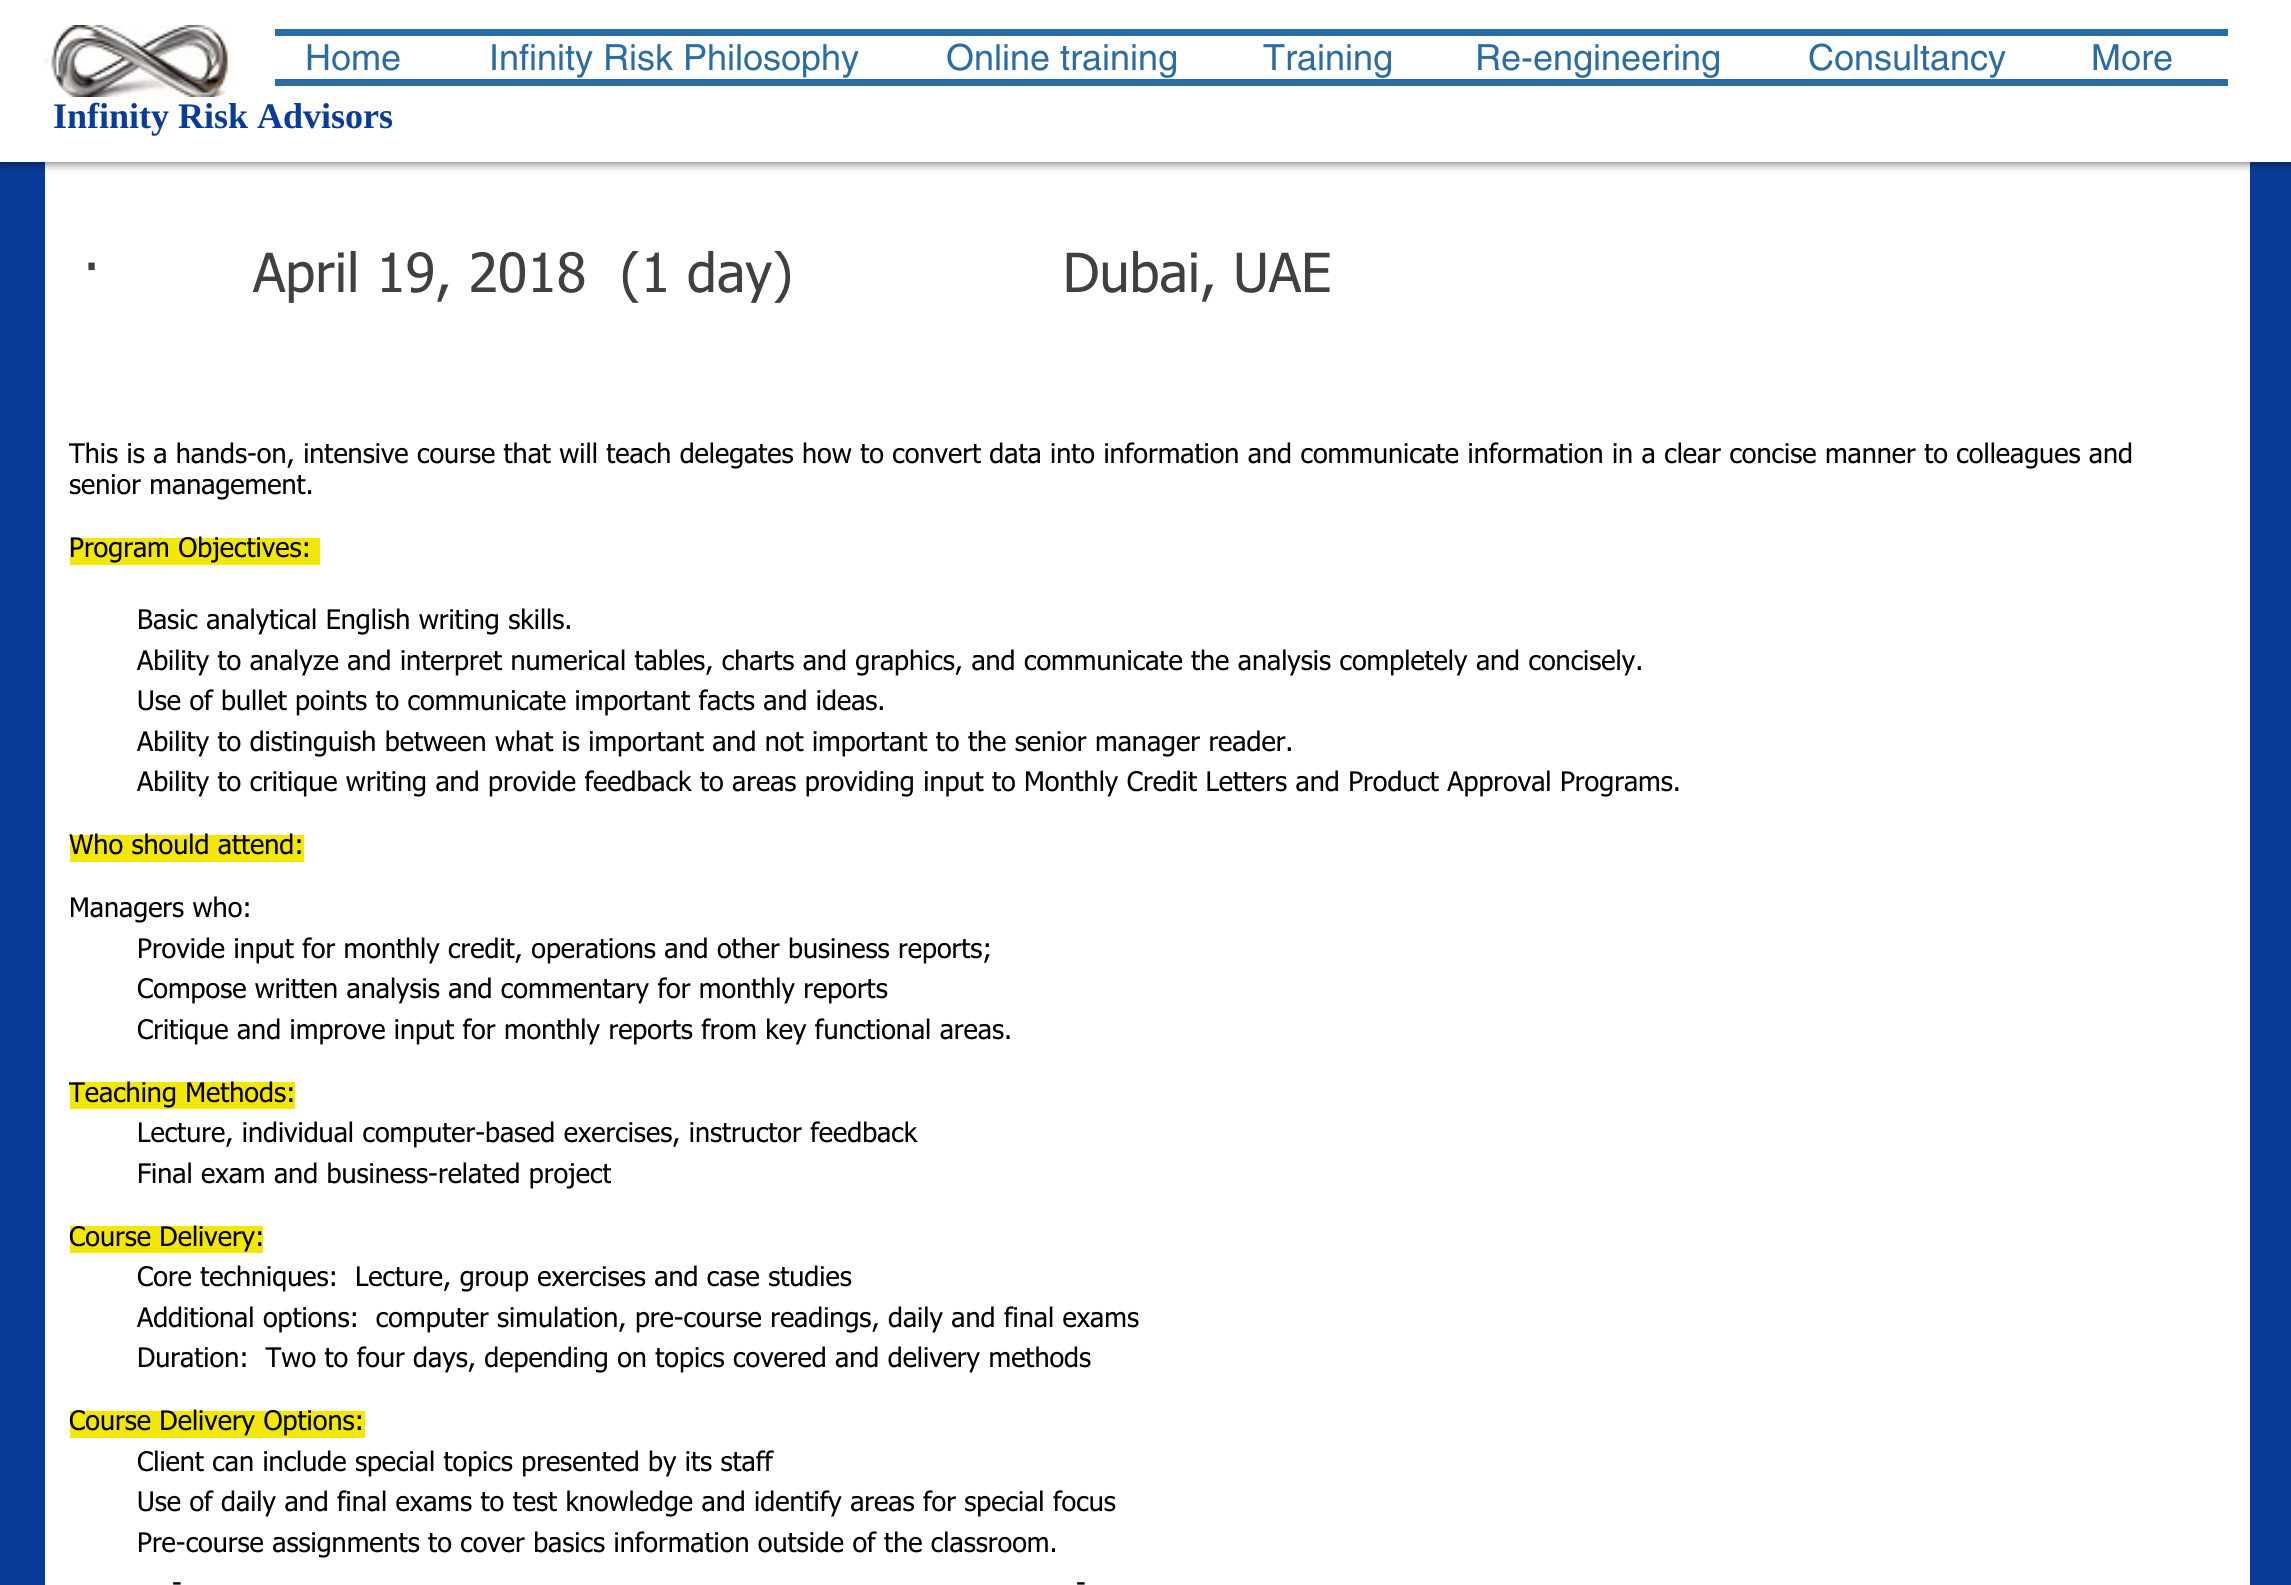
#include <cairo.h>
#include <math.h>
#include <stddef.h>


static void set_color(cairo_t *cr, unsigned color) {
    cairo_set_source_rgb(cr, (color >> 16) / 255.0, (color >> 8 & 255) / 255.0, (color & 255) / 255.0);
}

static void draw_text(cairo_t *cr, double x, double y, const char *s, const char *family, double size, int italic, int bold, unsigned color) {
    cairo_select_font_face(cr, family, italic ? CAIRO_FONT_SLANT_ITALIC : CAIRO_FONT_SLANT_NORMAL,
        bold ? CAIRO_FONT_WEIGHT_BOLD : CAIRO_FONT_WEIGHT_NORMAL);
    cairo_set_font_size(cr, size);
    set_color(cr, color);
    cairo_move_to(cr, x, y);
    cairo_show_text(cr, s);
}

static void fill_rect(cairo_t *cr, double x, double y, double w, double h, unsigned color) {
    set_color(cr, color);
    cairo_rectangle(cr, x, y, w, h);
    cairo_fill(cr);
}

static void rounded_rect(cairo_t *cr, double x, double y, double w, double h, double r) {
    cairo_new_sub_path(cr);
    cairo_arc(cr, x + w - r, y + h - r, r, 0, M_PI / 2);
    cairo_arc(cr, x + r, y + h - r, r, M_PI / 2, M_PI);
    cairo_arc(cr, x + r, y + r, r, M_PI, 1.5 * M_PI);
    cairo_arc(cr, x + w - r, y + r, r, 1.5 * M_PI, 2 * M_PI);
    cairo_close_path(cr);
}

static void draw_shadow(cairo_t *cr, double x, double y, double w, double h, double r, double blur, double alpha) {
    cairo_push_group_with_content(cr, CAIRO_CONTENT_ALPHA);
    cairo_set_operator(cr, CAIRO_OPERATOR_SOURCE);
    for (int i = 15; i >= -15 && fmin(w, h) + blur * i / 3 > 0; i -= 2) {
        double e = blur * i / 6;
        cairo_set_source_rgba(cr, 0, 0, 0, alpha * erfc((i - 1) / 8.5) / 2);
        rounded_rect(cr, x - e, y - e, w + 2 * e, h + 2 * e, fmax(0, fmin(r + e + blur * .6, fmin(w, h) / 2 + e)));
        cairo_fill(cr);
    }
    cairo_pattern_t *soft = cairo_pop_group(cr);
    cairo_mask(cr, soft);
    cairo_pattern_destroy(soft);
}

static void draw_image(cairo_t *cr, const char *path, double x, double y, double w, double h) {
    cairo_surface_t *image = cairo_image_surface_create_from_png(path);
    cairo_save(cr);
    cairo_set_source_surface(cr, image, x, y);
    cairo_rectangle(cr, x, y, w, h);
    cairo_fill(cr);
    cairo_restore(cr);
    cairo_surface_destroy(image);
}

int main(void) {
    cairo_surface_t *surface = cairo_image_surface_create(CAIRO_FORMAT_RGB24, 2291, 1585);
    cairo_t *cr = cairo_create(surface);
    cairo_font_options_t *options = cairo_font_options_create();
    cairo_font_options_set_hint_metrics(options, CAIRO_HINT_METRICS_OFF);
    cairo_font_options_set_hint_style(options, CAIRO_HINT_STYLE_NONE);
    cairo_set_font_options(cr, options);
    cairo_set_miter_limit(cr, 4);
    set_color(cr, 0x093B99);
    cairo_paint(cr);
    fill_rect(cr, 45, 162, 2205, 1423, 0xFFFFFF);
    set_color(cr, 0x000000);
    draw_shadow(cr, 0, 0, 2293, 162, 0, 5.5, 0.7);
    fill_rect(cr, 0, 0, 2291, 162, 0xFFFFFF);
    draw_image(cr, "assets/img1.png", 45, 25, 186, 72);
    fill_rect(cr, 275, 29, 1953, 7, 0x2B6CA3);
    fill_rect(cr, 275, 79, 1953, 7, 0x2B6CA3);
    draw_text(cr, 305, 70, "Home", "helvetica", 36, 0, 0, 0x2B6CA3);
    draw_text(cr, 489, 70, "Infinity Risk Philosophy", "helvetica", 36, 0, 0, 0x2B6CA3);
    draw_text(cr, 946, 70, "Online training", "helvetica", 36, 0, 0, 0x2B6CA3);
    draw_text(cr, 1263, 70, "Training", "helvetica", 36, 0, 0, 0x2B6CA3);
    draw_text(cr, 1475, 70, "Re-engineering", "helvetica", 36, 0, 0, 0x2B6CA3);
    draw_text(cr, 1808, 70, "Consultancy", "helvetica", 36, 0, 0, 0x2B6CA3);
    draw_text(cr, 2091, 70, "More", "helvetica", 36, 0, 0, 0x2B6CA3);
    draw_text(cr, 53, 128, "Infinity Risk Advisors", "Liberation Serif", 36, 0, 1, 0x093B99);
    draw_text(cr, 82, 292, "·         April 19, 2018  (1 day)                Dubai, UAE", "tahoma", 54, 0, 0, 0x404040);
    draw_text(cr, 69, 463, "This is a hands-on, intensive course that will teach delegates how to convert data into information and communicate information in a clear concise manner to colleagues and", "tahoma", 27, 0, 0, 0x000000);
    draw_text(cr, 69, 494, "senior management.", "tahoma", 27, 0, 0, 0x000000);
    fill_rect(cr, 70, 538, 250, 27, 0xF2E707);
    draw_text(cr, 69, 557, "Program Objectives:", "tahoma", 27, 0, 0, 0x000000);
    draw_text(cr, 137, 629, "Basic analytical English writing skills.", "tahoma", 27, 0, 0, 0x000000);
    draw_text(cr, 137, 670, "Ability to analyze and interpret numerical tables, charts and graphics, and communicate the analysis completely and concisely.", "tahoma", 27, 0, 0, 0x000000);
    draw_text(cr, 137, 710, "Use of bullet points to communicate important facts and ideas.", "tahoma", 27, 0, 0, 0x000000);
    draw_text(cr, 137, 751, "Ability to distinguish between what is important and not important to the senior manager reader.", "tahoma", 27, 0, 0, 0x000000);
    draw_text(cr, 137, 791, "Ability to critique writing and provide feedback to areas providing input to Monthly Credit Letters and Product Approval Programs.", "tahoma", 27, 0, 0, 0x000000);
    fill_rect(cr, 70, 835, 234, 27, 0xF2E707);
    draw_text(cr, 69, 854, "Who should attend:", "tahoma", 27, 0, 0, 0x000000);
    draw_text(cr, 69, 917, "Managers who:", "tahoma", 27, 0, 0, 0x000000);
    draw_text(cr, 137, 958, "Provide input for monthly credit, operations and other business reports;", "tahoma", 27, 0, 0, 0x000000);
    draw_text(cr, 137, 998, "Compose written analysis and commentary for monthly reports", "tahoma", 27, 0, 0, 0x000000);
    draw_text(cr, 137, 1039, "Critique and improve input for monthly reports from key functional areas.", "tahoma", 27, 0, 0, 0x000000);
    fill_rect(cr, 70, 1082, 225, 27, 0xF2E707);
    draw_text(cr, 69, 1102, "Teaching Methods:", "tahoma", 27, 0, 0, 0x000000);
    draw_text(cr, 137, 1142, "Lecture, individual computer-based exercises, instructor feedback", "tahoma", 27, 0, 0, 0x000000);
    draw_text(cr, 137, 1183, "Final exam and business-related project", "tahoma", 27, 0, 0, 0x000000);
    fill_rect(cr, 70, 1226, 193, 27, 0xF2E707);
    draw_text(cr, 69, 1246, "Course Delivery:", "tahoma", 27, 0, 0, 0x000000);
    draw_text(cr, 137, 1286, "Core techniques:  Lecture, group exercises and case studies", "tahoma", 27, 0, 0, 0x000000);
    draw_text(cr, 137, 1327, "Additional options:  computer simulation, pre-course readings, daily and final exams", "tahoma", 27, 0, 0, 0x000000);
    draw_text(cr, 137, 1367, "Duration:  Two to four days, depending on topics covered and delivery methods", "tahoma", 27, 0, 0, 0x000000);
    fill_rect(cr, 70, 1411, 295, 27, 0xF2E707);
    draw_text(cr, 69, 1430, "Course Delivery Options:", "tahoma", 27, 0, 0, 0x000000);
    draw_text(cr, 137, 1471, "Client can include special topics presented by its staff", "tahoma", 27, 0, 0, 0x000000);
    draw_text(cr, 137, 1511, "Use of daily and final exams to test knowledge and identify areas for special focus", "tahoma", 27, 0, 0, 0x000000);
    draw_text(cr, 137, 1552, "Pre-course assignments to cover basics information outside of the classroom.", "tahoma", 27, 0, 0, 0x000000);
    draw_text(cr, 172, 1592, "-", "tahoma", 27, 0, 0, 0x000000);
    draw_text(cr, 1076, 1592, "-", "tahoma", 27, 0, 0, 0x000000);
    cairo_surface_write_to_png(surface, "output.png");
    cairo_font_options_destroy(options);
    cairo_destroy(cr);
    cairo_surface_destroy(surface);
    return 0;
}
